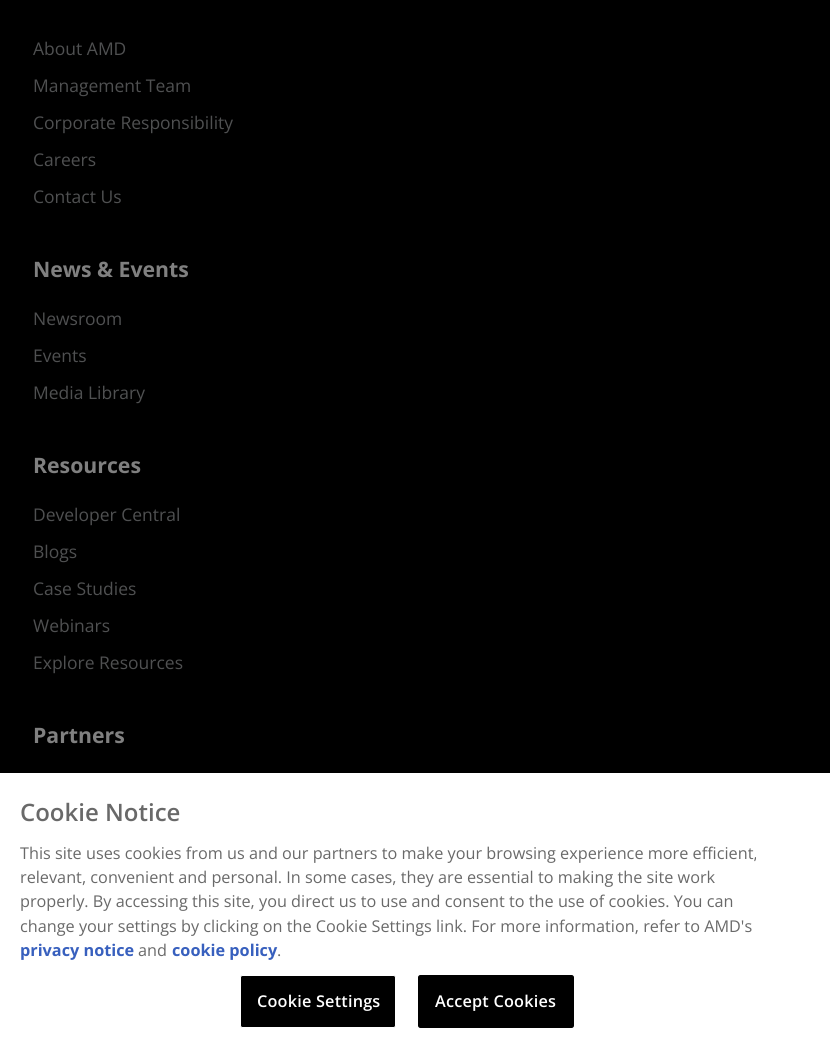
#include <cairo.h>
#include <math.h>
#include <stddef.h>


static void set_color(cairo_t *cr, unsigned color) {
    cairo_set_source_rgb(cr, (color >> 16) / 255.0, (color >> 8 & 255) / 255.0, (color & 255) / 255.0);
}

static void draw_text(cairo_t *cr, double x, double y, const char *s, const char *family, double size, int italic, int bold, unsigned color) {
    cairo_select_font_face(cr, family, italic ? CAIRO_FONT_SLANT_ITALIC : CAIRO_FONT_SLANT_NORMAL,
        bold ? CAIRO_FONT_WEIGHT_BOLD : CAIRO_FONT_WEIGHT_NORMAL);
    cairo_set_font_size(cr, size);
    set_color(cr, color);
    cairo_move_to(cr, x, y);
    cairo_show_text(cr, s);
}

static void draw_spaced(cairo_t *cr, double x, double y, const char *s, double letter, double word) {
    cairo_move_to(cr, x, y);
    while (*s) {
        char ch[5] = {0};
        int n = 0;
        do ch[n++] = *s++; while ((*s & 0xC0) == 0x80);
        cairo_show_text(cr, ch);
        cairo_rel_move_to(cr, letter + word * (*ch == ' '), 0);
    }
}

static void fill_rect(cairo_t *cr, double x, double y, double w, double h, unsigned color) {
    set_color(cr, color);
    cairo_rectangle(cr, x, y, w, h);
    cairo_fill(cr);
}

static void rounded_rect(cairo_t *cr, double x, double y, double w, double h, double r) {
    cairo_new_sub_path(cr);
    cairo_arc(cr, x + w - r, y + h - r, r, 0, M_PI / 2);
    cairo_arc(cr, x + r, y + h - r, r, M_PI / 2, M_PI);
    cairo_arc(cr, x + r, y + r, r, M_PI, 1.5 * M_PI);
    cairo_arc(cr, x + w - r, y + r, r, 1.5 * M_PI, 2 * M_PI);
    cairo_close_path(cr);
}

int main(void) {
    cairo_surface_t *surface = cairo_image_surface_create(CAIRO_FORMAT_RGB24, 830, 1047);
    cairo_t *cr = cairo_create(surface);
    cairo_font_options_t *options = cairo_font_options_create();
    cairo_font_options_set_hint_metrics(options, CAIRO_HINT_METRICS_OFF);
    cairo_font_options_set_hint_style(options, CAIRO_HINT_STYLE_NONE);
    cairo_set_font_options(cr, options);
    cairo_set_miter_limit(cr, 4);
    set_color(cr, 0x000000);
    cairo_paint(cr);
    draw_text(cr, 33, 55, "About AMD", "Open Sans", 17.5, 0, 0, 0x4F5051);
    draw_text(cr, 33, 92, "Management Team", "Open Sans", 17.5, 0, 0, 0x4F5051);
    draw_text(cr, 33, 129, "Corporate Responsibility", "Open Sans", 17.5, 0, 0, 0x4F5051);
    draw_text(cr, 33, 166, "Careers", "Open Sans", 17.5, 0, 0, 0x4F5051);
    draw_text(cr, 33, 203, "Contact Us", "Open Sans", 17.5, 0, 0, 0x4F5051);
    draw_text(cr, 33, 277, "News & Events", "Open Sans", 21.25, 0, 1, 0x808080);
    draw_text(cr, 33, 325, "Newsroom", "Open Sans", 17.5, 0, 0, 0x4F5051);
    draw_text(cr, 33, 362, "Events", "Open Sans", 17.5, 0, 0, 0x4F5051);
    draw_text(cr, 33, 399, "Media Library", "Open Sans", 17.5, 0, 0, 0x4F5051);
    draw_text(cr, 33, 473, "Resources", "Open Sans", 21.25, 0, 1, 0x808080);
    draw_text(cr, 33, 521, "Developer Central", "Open Sans", 17.5, 0, 0, 0x4F5051);
    draw_text(cr, 33, 558, "Blogs", "Open Sans", 17.5, 0, 0, 0x4F5051);
    draw_text(cr, 33, 595, "Case Studies", "Open Sans", 17.5, 0, 0, 0x4F5051);
    draw_text(cr, 33, 632, "Webinars", "Open Sans", 17.5, 0, 0, 0x4F5051);
    draw_text(cr, 33, 669, "Explore Resources", "Open Sans", 17.5, 0, 0, 0x4F5051);
    draw_text(cr, 33, 743, "Partners", "Open Sans", 21.25, 0, 1, 0x808080);
    fill_rect(cr, 0, 773, 830, 274, 0xFFFFFF);
    draw_text(cr, 20, 821, "Cookie Notice", "Open Sans SemiBold", 24, 0, 0, 0x696969);
    draw_text(cr, 20, 859, "This site uses cookies from us and our partners to make your browsing experience more efficient,", "Open Sans", 16.25, 0, 0, 0x696969);
    draw_text(cr, 20, 883, "relevant, convenient and personal. In some cases, they are essential to making the site work", "Open Sans", 16.25, 0, 0, 0x696969);
    draw_text(cr, 20, 907, "properly. By accessing this site, you direct us to use and consent to the use of cookies. You can", "Open Sans", 16.25, 0, 0, 0x696969);
    draw_text(cr, 20, 932, "change your settings by clicking on the Cookie Settings link. For more information, refer to AMD's", "Open Sans", 16.25, 0, 0, 0x696969);
    draw_text(cr, 20, 956, "privacy notice", "Open Sans", 16.25, 0, 1, 0x3860BE);
    draw_text(cr, 138, 956, "and", "Open Sans", 16.25, 0, 0, 0x696969);
    draw_text(cr, 172, 956, "cookie policy", "Open Sans", 16.25, 0, 1, 0x3860BE);
    draw_text(cr, 277, 956, ".", "Open Sans", 16.25, 0, 0, 0x696969);
    set_color(cr, 0x000000);
    rounded_rect(cr, 240.5, 975.5, 155, 52, 2);
    cairo_fill_preserve(cr);
    set_color(cr, 0xFFFFFF);
    cairo_set_line_width(cr, 1);
    cairo_stroke(cr);
    cairo_select_font_face(cr, "Open Sans SemiBold", CAIRO_FONT_SLANT_NORMAL, CAIRO_FONT_WEIGHT_NORMAL);
    draw_spaced(cr, 257, 1007, "Cookie Settings", 0.2, 0);
    set_color(cr, 0x000000);
    rounded_rect(cr, 418.5, 975.5, 155, 52, 2);
    cairo_fill_preserve(cr);
    cairo_stroke(cr);
    set_color(cr, 0xFFFFFF);
    draw_spaced(cr, 435, 1007, "Accept Cookies", 0.2, 0);
    cairo_surface_write_to_png(surface, "output.png");
    cairo_font_options_destroy(options);
    cairo_destroy(cr);
    cairo_surface_destroy(surface);
    return 0;
}
